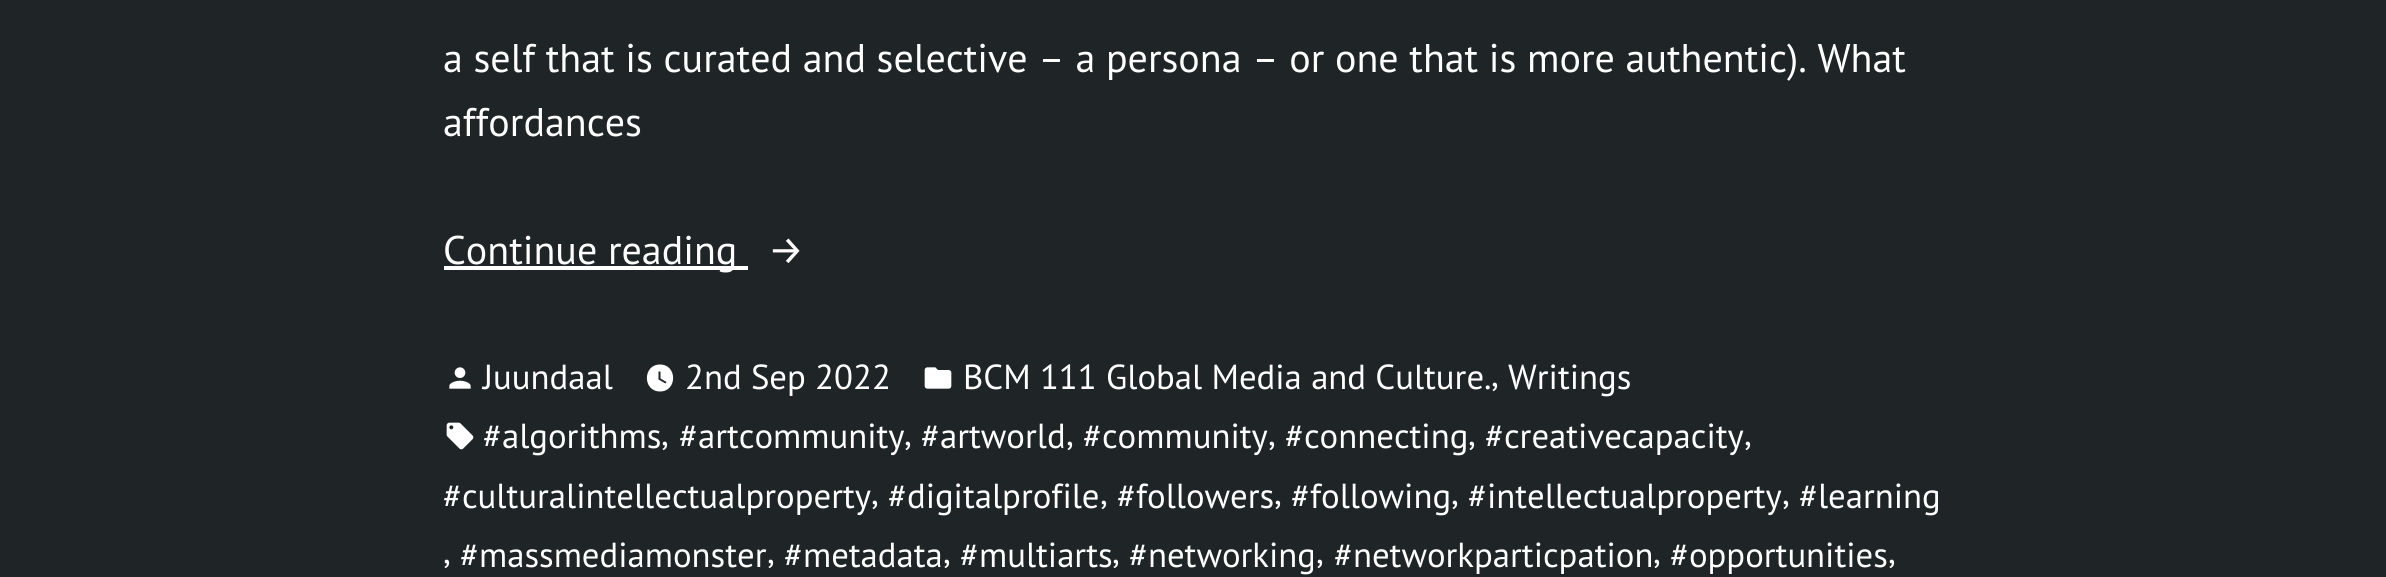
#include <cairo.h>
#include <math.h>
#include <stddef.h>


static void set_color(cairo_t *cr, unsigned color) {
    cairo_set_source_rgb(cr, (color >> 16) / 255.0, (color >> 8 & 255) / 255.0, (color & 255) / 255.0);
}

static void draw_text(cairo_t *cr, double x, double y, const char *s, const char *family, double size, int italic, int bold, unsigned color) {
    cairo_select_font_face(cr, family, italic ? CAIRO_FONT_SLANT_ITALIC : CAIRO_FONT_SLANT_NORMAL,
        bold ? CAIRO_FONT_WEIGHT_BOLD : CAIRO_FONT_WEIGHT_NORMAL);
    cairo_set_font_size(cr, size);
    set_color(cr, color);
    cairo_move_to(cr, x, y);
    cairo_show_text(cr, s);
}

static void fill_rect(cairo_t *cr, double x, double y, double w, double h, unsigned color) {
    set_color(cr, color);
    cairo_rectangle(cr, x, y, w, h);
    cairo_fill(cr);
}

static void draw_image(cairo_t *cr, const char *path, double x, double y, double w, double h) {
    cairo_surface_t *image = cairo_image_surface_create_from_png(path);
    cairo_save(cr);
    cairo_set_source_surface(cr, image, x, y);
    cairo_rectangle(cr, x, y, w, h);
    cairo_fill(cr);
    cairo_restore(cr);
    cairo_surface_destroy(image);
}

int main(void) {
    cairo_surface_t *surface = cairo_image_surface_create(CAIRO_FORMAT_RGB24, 2386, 577);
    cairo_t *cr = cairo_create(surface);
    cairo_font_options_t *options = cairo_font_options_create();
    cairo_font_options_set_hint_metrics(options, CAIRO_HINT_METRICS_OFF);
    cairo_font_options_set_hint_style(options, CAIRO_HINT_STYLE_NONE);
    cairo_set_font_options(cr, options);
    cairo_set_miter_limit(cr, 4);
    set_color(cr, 0x1F2527);
    cairo_paint(cr);
    draw_text(cr, 443, 72, "a self that is curated and selective – a persona – or one that is more authentic). What", "PT Sans", 40, 0, 0, 0xFFFFFF);
    draw_text(cr, 443, 136, "affordances", "PT Sans", 40, 0, 0, 0xFFFFFF);
    fill_rect(cr, 444, 266, 304, 4, 0xFFFFFF);
    draw_text(cr, 443, 264, "Continue reading", "PT Sans", 40, 0, 0, 0xFFFFFF);
    draw_text(cr, 768, 264, "→", "Fira Sans", 40, 0, 0, 0xFFFFFF);
    draw_image(cr, "assets/img1.png", 449, 367, 22, 22);
    draw_text(cr, 483, 389, "Juundaal", "PT Sans", 34.75, 0, 0, 0xFFFFFF);
    cairo_new_path(cr);
    cairo_move_to(cr, 660, 364.5);
    cairo_curve_to(cr, 642.5, 364.5, 642.5, 391.5, 660, 391.5);
    cairo_curve_to(cr, 677.5, 391.5, 677.5, 364.5, 660, 364.5);
    cairo_close_path(cr);
    cairo_move_to(cr, 665.5, 383.5);
    cairo_line_to(cr, 658.5, 379.5);
    cairo_line_to(cr, 658.5, 371.5);
    cairo_line_to(cr, 660.5, 371.5);
    cairo_line_to(cr, 660.5, 378.5);
    cairo_line_to(cr, 666.5, 382);
    cairo_close_path(cr);
    cairo_fill(cr);
    draw_text(cr, 685, 389, "2nd Sep 2022", "PT Sans", 34.75, 0, 0, 0xFFFFFF);
    draw_image(cr, "assets/img2.png", 924, 367, 28, 22);
    draw_text(cr, 963, 389, "BCM 111 Global Media and Culture.", "PT Sans", 34.75, 0, 0, 0xFFFFFF);
    draw_text(cr, 1491, 386, ",", "PT Sans", 34.75, 0, 0, 0xFFFFFF);
    draw_text(cr, 1508, 389, "Writings", "PT Sans", 34.75, 0, 0, 0xFFFFFF);
    draw_image(cr, "assets/img3.png", 446, 422, 28, 28);
    draw_text(cr, 483, 448, "#algorithms", "PT Sans", 34.75, 0, 0, 0xFFFFFF);
    draw_text(cr, 661, 445, ",", "PT Sans", 34.75, 0, 0, 0xFFFFFF);
    draw_text(cr, 679, 448, "#artcommunity", "PT Sans", 34.75, 0, 0, 0xFFFFFF);
    draw_text(cr, 904, 445, ",", "PT Sans", 34.75, 0, 0, 0xFFFFFF);
    draw_text(cr, 921, 448, "#artworld", "PT Sans", 34.75, 0, 0, 0xFFFFFF);
    draw_text(cr, 1066, 445, ",", "PT Sans", 34.75, 0, 0, 0xFFFFFF);
    draw_text(cr, 1083, 448, "#community", "PT Sans", 34.75, 0, 0, 0xFFFFFF);
    draw_text(cr, 1268, 445, ",", "PT Sans", 34.75, 0, 0, 0xFFFFFF);
    draw_text(cr, 1285, 448, "#connecting", "PT Sans", 34.75, 0, 0, 0xFFFFFF);
    draw_text(cr, 1468, 445, ",", "PT Sans", 34.75, 0, 0, 0xFFFFFF);
    draw_text(cr, 1485, 448, "#creativecapacity", "PT Sans", 34.75, 0, 0, 0xFFFFFF);
    draw_text(cr, 1744, 445, ",", "PT Sans", 34.75, 0, 0, 0xFFFFFF);
    draw_text(cr, 443, 508, "#culturalintellectualproperty", "PT Sans", 34.75, 0, 0, 0xFFFFFF);
    draw_text(cr, 871, 504, ",", "PT Sans", 34.75, 0, 0, 0xFFFFFF);
    draw_text(cr, 888, 508, "#digitalprofile", "PT Sans", 34.75, 0, 0, 0xFFFFFF);
    draw_text(cr, 1100, 504, ",", "PT Sans", 34.75, 0, 0, 0xFFFFFF);
    draw_text(cr, 1117, 508, "#followers", "PT Sans", 34.75, 0, 0, 0xFFFFFF);
    draw_text(cr, 1274, 504, ",", "PT Sans", 34.75, 0, 0, 0xFFFFFF);
    draw_text(cr, 1291, 508, "#following", "PT Sans", 34.75, 0, 0, 0xFFFFFF);
    draw_text(cr, 1451, 504, ",", "PT Sans", 34.75, 0, 0, 0xFFFFFF);
    draw_text(cr, 1468, 508, "#intellectualproperty", "PT Sans", 34.75, 0, 0, 0xFFFFFF);
    draw_text(cr, 1782, 504, ",", "PT Sans", 34.75, 0, 0, 0xFFFFFF);
    draw_text(cr, 1799, 508, "#learning", "PT Sans", 34.75, 0, 0, 0xFFFFFF);
    draw_text(cr, 443, 563, ",", "PT Sans", 34.75, 0, 0, 0xFFFFFF);
    draw_text(cr, 460, 567, "#massmediamonster", "PT Sans", 34.75, 0, 0, 0xFFFFFF);
    draw_text(cr, 767, 563, ",", "PT Sans", 34.75, 0, 0, 0xFFFFFF);
    draw_text(cr, 784, 567, "#metadata", "PT Sans", 34.75, 0, 0, 0xFFFFFF);
    draw_text(cr, 943, 563, ",", "PT Sans", 34.75, 0, 0, 0xFFFFFF);
    draw_text(cr, 960, 567, "#multiarts", "PT Sans", 34.75, 0, 0, 0xFFFFFF);
    draw_text(cr, 1112, 563, ",", "PT Sans", 34.75, 0, 0, 0xFFFFFF);
    draw_text(cr, 1129, 567, "#networking", "PT Sans", 34.75, 0, 0, 0xFFFFFF);
    draw_text(cr, 1316, 563, ",", "PT Sans", 34.75, 0, 0, 0xFFFFFF);
    draw_text(cr, 1334, 567, "#networkparticpation", "PT Sans", 34.75, 0, 0, 0xFFFFFF);
    draw_text(cr, 1653, 563, ",", "PT Sans", 34.75, 0, 0, 0xFFFFFF);
    draw_text(cr, 1670, 567, "#opportunities", "PT Sans", 34.75, 0, 0, 0xFFFFFF);
    draw_text(cr, 1888, 563, ",", "PT Sans", 34.75, 0, 0, 0xFFFFFF);
    cairo_surface_write_to_png(surface, "output.png");
    cairo_font_options_destroy(options);
    cairo_destroy(cr);
    cairo_surface_destroy(surface);
    return 0;
}
